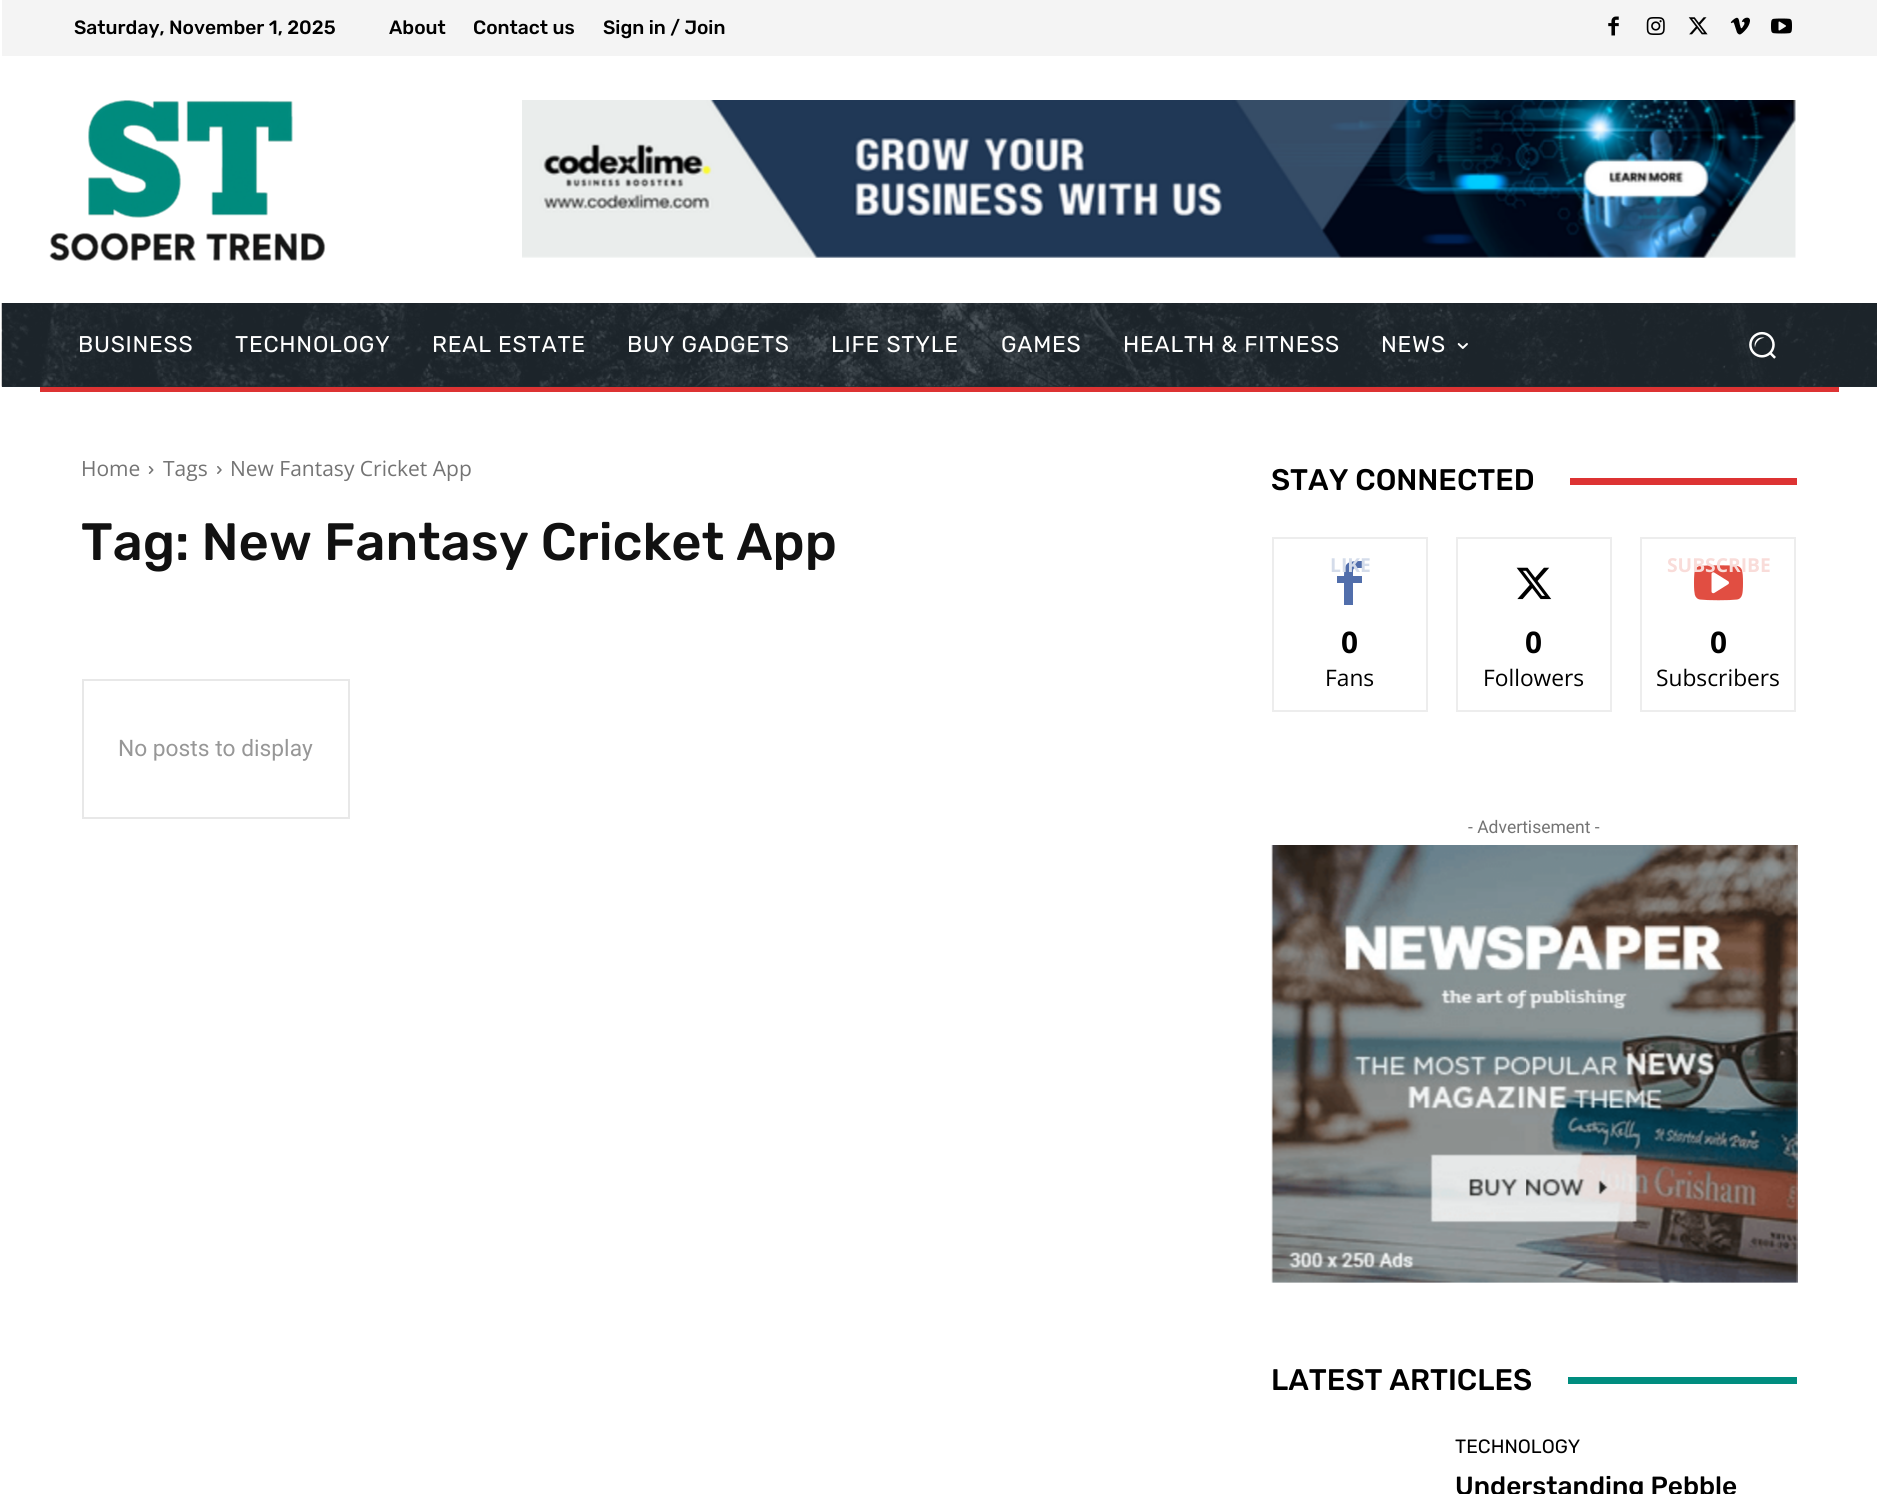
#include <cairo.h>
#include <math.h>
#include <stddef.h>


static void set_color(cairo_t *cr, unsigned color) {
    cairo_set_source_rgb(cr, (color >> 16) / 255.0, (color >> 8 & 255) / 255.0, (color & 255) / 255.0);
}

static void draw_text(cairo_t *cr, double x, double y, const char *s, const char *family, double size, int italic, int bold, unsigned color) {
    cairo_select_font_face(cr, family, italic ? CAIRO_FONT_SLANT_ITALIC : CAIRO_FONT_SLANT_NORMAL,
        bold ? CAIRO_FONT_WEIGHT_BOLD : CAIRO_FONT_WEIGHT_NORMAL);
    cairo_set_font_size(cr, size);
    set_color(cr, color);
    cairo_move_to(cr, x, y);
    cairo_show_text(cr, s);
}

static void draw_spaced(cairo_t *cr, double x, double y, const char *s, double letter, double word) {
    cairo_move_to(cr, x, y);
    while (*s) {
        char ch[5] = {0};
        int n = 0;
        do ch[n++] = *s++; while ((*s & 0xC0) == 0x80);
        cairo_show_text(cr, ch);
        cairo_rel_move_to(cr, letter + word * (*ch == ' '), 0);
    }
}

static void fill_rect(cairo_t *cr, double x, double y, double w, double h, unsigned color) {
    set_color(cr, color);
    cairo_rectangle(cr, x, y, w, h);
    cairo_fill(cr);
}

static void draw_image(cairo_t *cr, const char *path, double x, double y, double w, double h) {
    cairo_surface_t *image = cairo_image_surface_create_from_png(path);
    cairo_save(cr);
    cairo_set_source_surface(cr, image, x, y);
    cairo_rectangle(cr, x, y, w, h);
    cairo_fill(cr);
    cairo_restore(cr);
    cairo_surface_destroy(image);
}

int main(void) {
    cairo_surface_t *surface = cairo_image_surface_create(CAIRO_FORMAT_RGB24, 1877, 1494);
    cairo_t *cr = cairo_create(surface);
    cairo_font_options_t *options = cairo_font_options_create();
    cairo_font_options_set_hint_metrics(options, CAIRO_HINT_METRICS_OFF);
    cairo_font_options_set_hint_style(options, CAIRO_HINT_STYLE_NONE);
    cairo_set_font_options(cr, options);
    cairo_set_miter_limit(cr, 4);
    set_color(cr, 0xFFFFFF);
    cairo_paint(cr);
    fill_rect(cr, 2, 0, 1875, 56, 0xF4F4F4);
    draw_text(cr, 74, 34, "Saturday, November 1, 2025", "Rubik Medium", 19.25, 0, 0, 0x000000);
    draw_text(cr, 389, 34, "About", "Rubik Medium", 19.25, 0, 0, 0x000000);
    draw_text(cr, 473, 34, "Contact us", "Rubik Medium", 19.25, 0, 0, 0x000000);
    draw_text(cr, 603, 34, "Sign in / Join", "Rubik Medium", 19.25, 0, 0, 0x000000);
    draw_image(cr, "assets/img1.png", 1608, 16, 11, 20);
    draw_image(cr, "assets/img2.png", 1646, 17, 19, 18);
    draw_image(cr, "assets/img3.png", 1688, 17, 20, 18);
    draw_image(cr, "assets/img4.png", 1730, 17, 20, 18);
    draw_image(cr, "assets/img5.png", 1771, 18, 21, 16);
    draw_image(cr, "assets/img6.png", 49, 100, 277, 161);
    draw_image(cr, "assets/img7.png", 522, 100, 1274, 158);
    fill_rect(cr, 2, 303, 1875, 84, 0x232D35);
    draw_image(cr, "assets/img8.png", 1, 303, 1876, 84);
    cairo_select_font_face(cr, "Rubik", CAIRO_FONT_SLANT_NORMAL, CAIRO_FONT_WEIGHT_NORMAL);
    cairo_set_font_size(cr, 22.75);
    set_color(cr, 0xFFFFFF);
    draw_spaced(cr, 78, 352, "BUSINESS", 0.75, 0);
    draw_spaced(cr, 235, 352, "TECHNOLOGY", 0.75, 0);
    draw_spaced(cr, 432, 352, "REAL ESTATE", 0.75, 0);
    draw_spaced(cr, 627, 352, "BUY GADGETS", 0.75, 0);
    draw_spaced(cr, 831, 352, "LIFE STYLE", 0.75, 0);
    draw_spaced(cr, 1001, 352, "GAMES", 0.75, 0);
    draw_spaced(cr, 1123, 352, "HEALTH & FITNESS", 0.75, 0);
    draw_spaced(cr, 1381, 352, "NEWS", 0.75, 0);
    draw_image(cr, "assets/img9.png", 1457, 343, 11, 6);
    draw_image(cr, "assets/img10.png", 1749, 331, 27, 28);
    fill_rect(cr, 40, 387, 1799, 5, 0xDD3333);
    draw_text(cr, 81, 476, "Home", "Open Sans", 21, 0, 0, 0x747474);
    draw_image(cr, "assets/img11.png", 148, 466, 6, 8);
    draw_text(cr, 163, 476, "Tags", "Open Sans", 21, 0, 0, 0x747474);
    draw_image(cr, "assets/img12.png", 217, 466, 5, 8);
    draw_text(cr, 230, 476, "New Fantasy Cricket App", "Open Sans", 21, 0, 0, 0x747474);
    draw_text(cr, 81, 560, "Tag: New Fantasy Cricket App", "Rubik Medium", 52.5, 0, 0, 0x111111);
    cairo_rectangle(cr, 83, 680, 266, 138);
    set_color(cr, 0xE8E8E8);
    cairo_stroke(cr);
    draw_text(cr, 118, 756, "No posts to display", "Roboto", 22.75, 0, 0, 0x979797);
    draw_text(cr, 1271, 490, "STAY CONNECTED", "Rubik Medium", 29.75, 0, 0, 0x000000);
    fill_rect(cr, 1570, 478, 227, 7, 0xDD3333);
    cairo_rectangle(cr, 1273, 538, 154, 173);
    set_color(cr, 0xEDEDED);
    cairo_stroke(cr);
    set_color(cr, 0x516EAB);
    cairo_new_path(cr);
    cairo_move_to(cr, 1362, 568);
    cairo_curve_to(cr, 1352, 568, 1353, 567, 1353, 576);
    cairo_line_to(cr, 1362, 576);
    cairo_line_to(cr, 1362, 583);
    cairo_line_to(cr, 1353, 583);
    cairo_line_to(cr, 1353, 605);
    cairo_line_to(cr, 1344, 605);
    cairo_line_to(cr, 1344, 583);
    cairo_line_to(cr, 1337, 583);
    cairo_line_to(cr, 1337, 576);
    cairo_line_to(cr, 1344, 576);
    cairo_curve_to(cr, 1344, 562, 1348, 561, 1362, 561);
    cairo_close_path(cr);
    cairo_fill(cr);
    draw_text(cr, 1330, 572, "LIKE", "Open Sans", 19.25, 0, 1, 0xD4DCEA);
    draw_text(cr, 1341, 653, "0", "Open Sans", 29.75, 0, 1, 0x000000);
    draw_text(cr, 1325, 686, "Fans", "Open Sans", 22.75, 0, 0, 0x000000);
    cairo_rectangle(cr, 1457, 538, 154, 173);
    set_color(cr, 0xEDEDED);
    cairo_stroke(cr);
    draw_image(cr, "assets/img13.png", 1516, 567, 36, 33);
    draw_text(cr, 1525, 653, "0", "Open Sans", 29.75, 0, 1, 0x000000);
    draw_text(cr, 1483, 686, "Followers", "Open Sans", 22.75, 0, 0, 0x000000);
    cairo_rectangle(cr, 1641, 538, 154, 173);
    set_color(cr, 0xEDEDED);
    cairo_stroke(cr);
    draw_image(cr, "assets/img14.png", 1694, 565, 49, 36);
    draw_text(cr, 1667, 572, "SUBSCRIBE", "Open Sans", 19.25, 0, 1, 0xF9DCD9);
    draw_text(cr, 1710, 653, "0", "Open Sans", 29.75, 0, 1, 0x000000);
    draw_text(cr, 1656, 686, "Subscribers", "Open Sans", 22.75, 0, 0, 0x000000);
    draw_text(cr, 1468, 833, "- Advertisement -", "Roboto", 17.5, 0, 0, 0x747474);
    draw_image(cr, "assets/img15.png", 1271, 845, 527, 438);
    draw_text(cr, 1271, 1390, "LATEST ARTICLES", "Rubik Medium", 29.75, 0, 0, 0x000000);
    fill_rect(cr, 1568, 1377, 229, 7, 0x008D7F);
    draw_text(cr, 1455, 1453, "TECHNOLOGY", "Rubik", 19.25, 0, 0, 0x000000);
    draw_text(cr, 1455, 1495, "Understanding Pebble", "Rubik Medium", 26.25, 0, 0, 0x000000);
    cairo_surface_write_to_png(surface, "output.png");
    cairo_font_options_destroy(options);
    cairo_destroy(cr);
    cairo_surface_destroy(surface);
    return 0;
}
